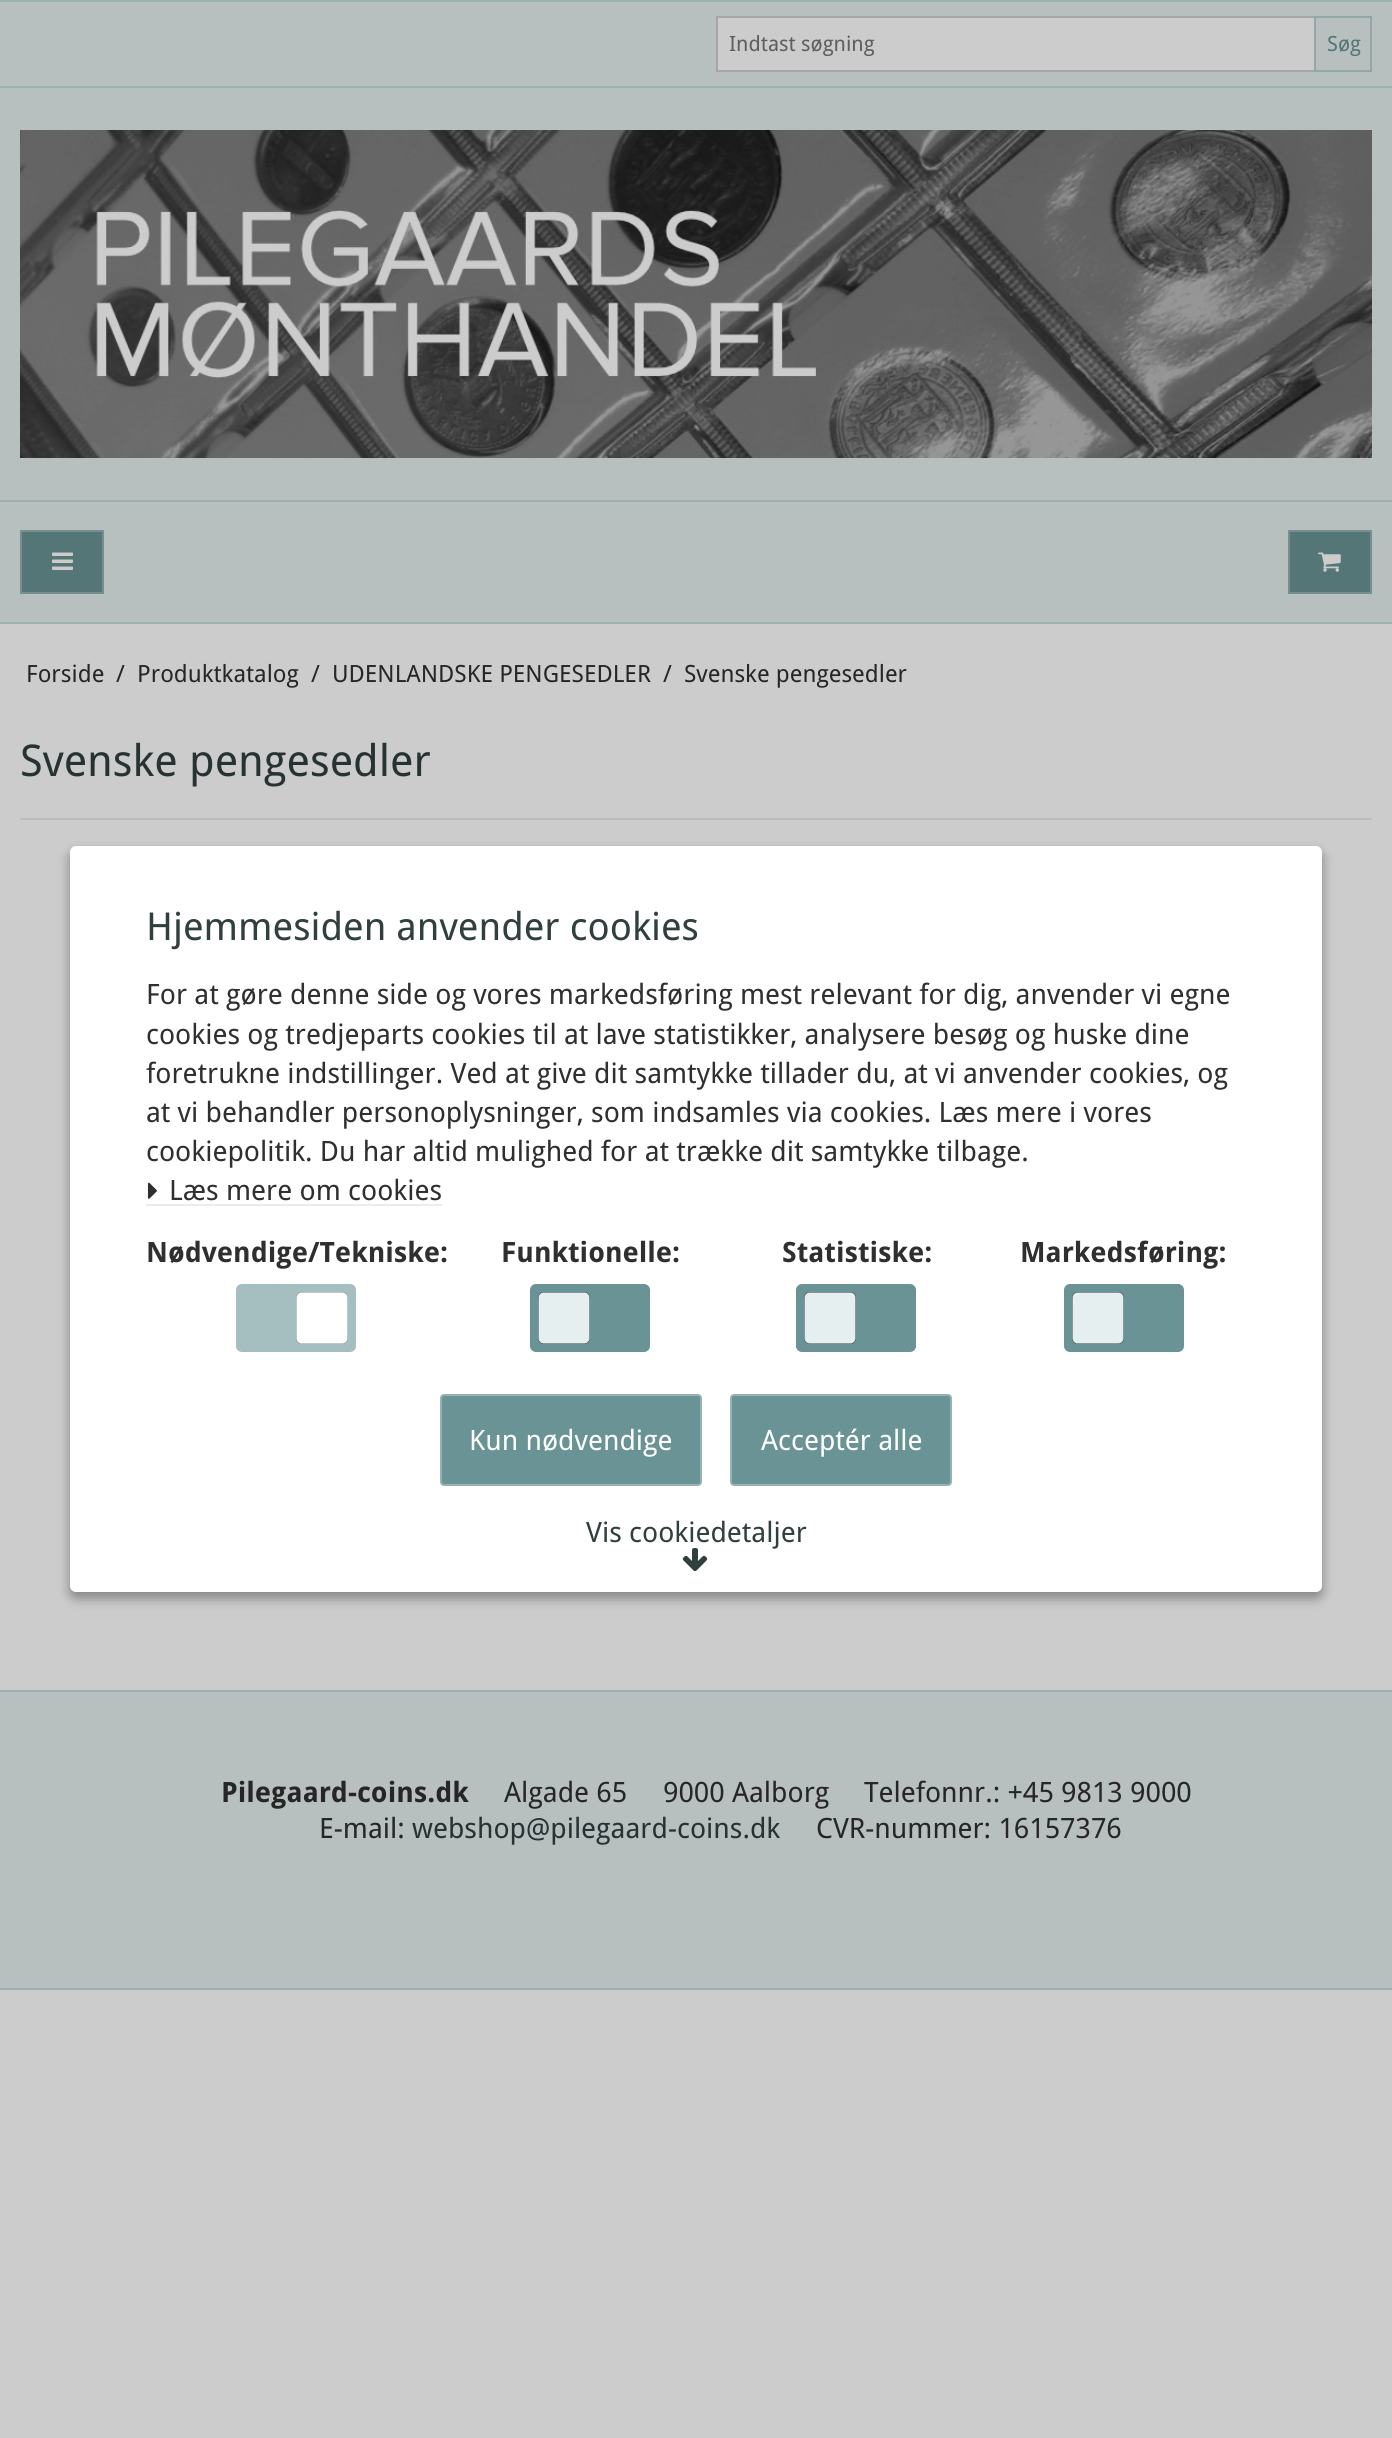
#include <cairo.h>
#include <math.h>
#include <stddef.h>


static void set_color(cairo_t *cr, unsigned color) {
    cairo_set_source_rgb(cr, (color >> 16) / 255.0, (color >> 8 & 255) / 255.0, (color & 255) / 255.0);
}

static void draw_text(cairo_t *cr, double x, double y, const char *s, const char *family, double size, int italic, int bold, unsigned color) {
    cairo_select_font_face(cr, family, italic ? CAIRO_FONT_SLANT_ITALIC : CAIRO_FONT_SLANT_NORMAL,
        bold ? CAIRO_FONT_WEIGHT_BOLD : CAIRO_FONT_WEIGHT_NORMAL);
    cairo_set_font_size(cr, size);
    set_color(cr, color);
    cairo_move_to(cr, x, y);
    cairo_show_text(cr, s);
}

static void fill_rect(cairo_t *cr, double x, double y, double w, double h, unsigned color) {
    set_color(cr, color);
    cairo_rectangle(cr, x, y, w, h);
    cairo_fill(cr);
}

static void rounded_rect(cairo_t *cr, double x, double y, double w, double h, double r) {
    cairo_new_sub_path(cr);
    cairo_arc(cr, x + w - r, y + h - r, r, 0, M_PI / 2);
    cairo_arc(cr, x + r, y + h - r, r, M_PI / 2, M_PI);
    cairo_arc(cr, x + r, y + r, r, M_PI, 1.5 * M_PI);
    cairo_arc(cr, x + w - r, y + r, r, 1.5 * M_PI, 2 * M_PI);
    cairo_close_path(cr);
}

static void draw_shadow(cairo_t *cr, double x, double y, double w, double h, double r, double blur, double alpha) {
    cairo_push_group_with_content(cr, CAIRO_CONTENT_ALPHA);
    cairo_set_operator(cr, CAIRO_OPERATOR_SOURCE);
    for (int i = 15; i >= -15 && fmin(w, h) + blur * i / 3 > 0; i -= 2) {
        double e = blur * i / 6;
        cairo_set_source_rgba(cr, 0, 0, 0, alpha * erfc((i - 1) / 8.5) / 2);
        rounded_rect(cr, x - e, y - e, w + 2 * e, h + 2 * e, fmax(0, fmin(r + e + blur * .6, fmin(w, h) / 2 + e)));
        cairo_fill(cr);
    }
    cairo_pattern_t *soft = cairo_pop_group(cr);
    cairo_mask(cr, soft);
    cairo_pattern_destroy(soft);
}

static void draw_image(cairo_t *cr, const char *path, double x, double y, double w, double h) {
    cairo_surface_t *image = cairo_image_surface_create_from_png(path);
    cairo_save(cr);
    cairo_set_source_surface(cr, image, x, y);
    cairo_rectangle(cr, x, y, w, h);
    cairo_fill(cr);
    cairo_restore(cr);
    cairo_surface_destroy(image);
}

int main(void) {
    cairo_surface_t *surface = cairo_image_surface_create(CAIRO_FORMAT_RGB24, 1392, 2438);
    cairo_t *cr = cairo_create(surface);
    cairo_font_options_t *options = cairo_font_options_create();
    cairo_font_options_set_hint_metrics(options, CAIRO_HINT_METRICS_OFF);
    cairo_font_options_set_hint_style(options, CAIRO_HINT_STYLE_NONE);
    cairo_set_font_options(cr, options);
    cairo_set_miter_limit(cr, 4);
    set_color(cr, 0xCCCCCC);
    cairo_paint(cr);
    fill_rect(cr, 0, 2, 1392, 84, 0xB7BFBF);
    fill_rect(cr, 0, 0, 1392, 2, 0x9EB0B0);
    fill_rect(cr, 0, 86, 1392, 2, 0x9EB0B0);
    fill_rect(cr, 718, 18, 596, 52, 0xCCCCCC);
    fill_rect(cr, 716, 16, 600, 2, 0xA6A6A6);
    fill_rect(cr, 716, 70, 600, 2, 0xA6A6A6);
    fill_rect(cr, 716, 16, 2, 56, 0xA6A6A6);
    draw_text(cr, 729, 51, "Indtast søgning", "Droid Sans", 21, 0, 0, 0x5E5E5E);
    cairo_rectangle(cr, 1315, 17, 56, 54);
    set_color(cr, 0x92A8A8);
    cairo_stroke(cr);
    draw_text(cr, 1327, 51, "Søg", "Droid Sans", 21, 0, 0, 0x547676);
    fill_rect(cr, 0, 88, 1392, 412, 0xB7BFBF);
    draw_image(cr, "assets/img1.png", 20, 130, 1352, 328);
    fill_rect(cr, 0, 502, 1392, 120, 0xB7BFBF);
    fill_rect(cr, 0, 500, 1392, 2, 0x9EB0B0);
    fill_rect(cr, 0, 622, 1392, 2, 0x9EB0B0);
    set_color(cr, 0x547676);
    cairo_rectangle(cr, 21, 531, 82, 62);
    cairo_fill_preserve(cr);
    set_color(cr, 0x778F90);
    cairo_stroke(cr);
    draw_image(cr, "assets/img2.png", 52, 552, 21, 18);
    set_color(cr, 0x547676);
    cairo_rectangle(cr, 1289, 531, 82, 62);
    cairo_fill_preserve(cr);
    set_color(cr, 0x778F90);
    cairo_stroke(cr);
    draw_image(cr, "assets/img3.png", 1318, 552, 23, 20);
    draw_text(cr, 26, 682, "Forside", "Droid Sans", 23.75, 0, 0, 0x262626);
    draw_text(cr, 116, 682, "/", "Droid Sans", 23.75, 0, 0, 0x262626);
    draw_text(cr, 137, 682, "Produktkatalog", "Droid Sans", 23.75, 0, 0, 0x262626);
    draw_text(cr, 311, 682, "/", "Droid Sans", 23.75, 0, 0, 0x262626);
    draw_text(cr, 332, 682, "UDENLANDSKE PENGESEDLER", "Droid Sans", 23.75, 0, 0, 0x262626);
    draw_text(cr, 663, 682, "/", "Droid Sans", 23.75, 0, 0, 0x262626);
    draw_text(cr, 684, 682, "Svenske pengesedler", "Droid Sans", 23.75, 0, 0, 0x262626);
    fill_rect(cr, 20, 818, 1352, 2, 0xBDBDBD);
    draw_text(cr, 20, 776, "Svenske pengesedler", "Droid Sans", 43.75, 0, 0, 0x273232);
    set_color(cr, 0x000000);
    draw_shadow(cr, 70, 852, 1252, 746, 6, 6, 0.23);
    draw_shadow(cr, 70, 852, 1252, 746, 6, 6, 0.16);
    set_color(cr, 0xFFFFFF);
    rounded_rect(cr, 70, 846, 1252, 746, 6);
    cairo_fill(cr);
    draw_text(cr, 146, 940, "Hjemmesiden anvender cookies", "Droid Sans", 38.5, 0, 0, 0x313F3F);
    draw_text(cr, 146, 1004, "For at gøre denne side og vores markedsføring mest relevant for dig, anvender vi egne", "Droid Sans", 28, 0, 0, 0x2F2F2F);
    draw_text(cr, 146, 1044, "cookies og tredjeparts cookies til at lave statistikker, analysere besøg og huske dine", "Droid Sans", 28, 0, 0, 0x2F2F2F);
    draw_text(cr, 146, 1083, "foretrukne indstillinger. Ved at give dit samtykke tillader du, at vi anvender cookies, og", "Droid Sans", 28, 0, 0, 0x2F2F2F);
    draw_text(cr, 146, 1122, "at vi behandler personoplysninger, som indsamles via cookies. Læs mere i vores", "Droid Sans", 28, 0, 0, 0x2F2F2F);
    draw_text(cr, 146, 1161, "cookiepolitik. Du har altid mulighed for at trække dit samtykke tilbage.", "Droid Sans", 28, 0, 0, 0x2F2F2F);
    fill_rect(cr, 146, 1204, 296, 2, 0xECECEC);
    draw_image(cr, "assets/img4.png", 147, 1182, 10, 17);
    draw_text(cr, 169, 1200, "Læs mere om cookies", "Droid Sans", 28, 0, 0, 0x2F2F2F);
    draw_text(cr, 146, 1262, "Nødvendige/Tekniske:", "Droid Sans", 28, 0, 1, 0x2F2F2F);
    set_color(cr, 0xA5BEBF);
    rounded_rect(cr, 236, 1284, 120, 68, 6);
    cairo_fill(cr);
    rounded_rect(cr, 296.2, 1292.2, 51.6, 51.6, 5.8);
    set_color(cr, 0x7F8989);
    cairo_set_line_width(cr, 0.4);
    cairo_stroke(cr);
    set_color(cr, 0xFFFFFF);
    rounded_rect(cr, 296.2, 1292.2, 51.6, 51.6, 5.8);
    cairo_fill_preserve(cr);
    set_color(cr, 0x7F8989);
    cairo_stroke(cr);
    draw_text(cr, 501, 1262, "Funktionelle:", "Droid Sans", 28, 0, 1, 0x2F2F2F);
    set_color(cr, 0x699394);
    rounded_rect(cr, 530, 1284, 120, 68, 6);
    cairo_fill(cr);
    rounded_rect(cr, 538.2, 1292.2, 51.6, 51.6, 5.8);
    set_color(cr, 0x2A3A3A);
    cairo_stroke(cr);
    set_color(cr, 0xE5EFEF);
    rounded_rect(cr, 538.2, 1292.2, 51.6, 51.6, 5.8);
    cairo_fill_preserve(cr);
    set_color(cr, 0x2A3A3A);
    cairo_stroke(cr);
    draw_text(cr, 782, 1262, "Statistiske:", "Droid Sans", 28, 0, 1, 0x2F2F2F);
    set_color(cr, 0x699394);
    rounded_rect(cr, 796, 1284, 120, 68, 6);
    cairo_fill(cr);
    rounded_rect(cr, 804.2, 1292.2, 51.6, 51.6, 5.8);
    set_color(cr, 0x2A3A3A);
    cairo_stroke(cr);
    set_color(cr, 0xE5EFEF);
    rounded_rect(cr, 804.2, 1292.2, 51.6, 51.6, 5.8);
    cairo_fill_preserve(cr);
    set_color(cr, 0x2A3A3A);
    cairo_stroke(cr);
    draw_text(cr, 1020, 1262, "Markedsføring:", "Droid Sans", 28, 0, 1, 0x2F2F2F);
    set_color(cr, 0x699394);
    rounded_rect(cr, 1064, 1284, 120, 68, 6);
    cairo_fill(cr);
    rounded_rect(cr, 1072.2, 1292.2, 51.6, 51.6, 5.8);
    set_color(cr, 0x2A3A3A);
    cairo_stroke(cr);
    set_color(cr, 0xE5EFEF);
    rounded_rect(cr, 1072.2, 1292.2, 51.6, 51.6, 5.8);
    cairo_fill_preserve(cr);
    set_color(cr, 0x2A3A3A);
    cairo_stroke(cr);
    set_color(cr, 0x699394);
    rounded_rect(cr, 441, 1395, 260, 90, 3);
    cairo_fill_preserve(cr);
    set_color(cr, 0x95B3B4);
    cairo_set_line_width(cr, 2);
    cairo_stroke(cr);
    draw_text(cr, 469, 1450, "Kun nødvendige", "Droid Sans", 28, 0, 0, 0xFFFFFF);
    set_color(cr, 0x699394);
    rounded_rect(cr, 731, 1395, 220, 90, 3);
    cairo_fill_preserve(cr);
    set_color(cr, 0x95B3B4);
    cairo_stroke(cr);
    draw_text(cr, 761, 1450, "Acceptér alle", "Droid Sans", 28, 0, 0, 0xFFFFFF);
    draw_text(cr, 586, 1542, "Vis cookiedetaljer", "Droid Sans", 28, 0, 0, 0x313F3F);
    draw_image(cr, "assets/img5.png", 682, 1548, 26, 24);
    fill_rect(cr, 0, 1692, 1392, 296, 0xB7BFBF);
    fill_rect(cr, 0, 1690, 1392, 2, 0x9EB0B0);
    fill_rect(cr, 0, 1988, 1392, 2, 0x9EB0B0);
    draw_text(cr, 221, 1802, "Pilegaard-coins.dk", "Droid Sans", 28, 0, 1, 0x262626);
    draw_text(cr, 504, 1802, "Algade 65", "Droid Sans", 28, 0, 0, 0x262626);
    draw_text(cr, 663, 1802, "9000 Aalborg", "Droid Sans", 28, 0, 0, 0x262626);
    draw_text(cr, 864, 1802, "Telefonnr.: +45 9813 9000", "Droid Sans", 28, 0, 0, 0x262626);
    draw_text(cr, 319, 1838, "E-mail:", "Droid Sans", 28, 0, 0, 0x262626);
    draw_text(cr, 412, 1838, "webshop@pilegaard-coins.dk", "Droid Sans", 28, 0, 0, 0x273232);
    draw_text(cr, 816, 1838, "CVR-nummer: 16157376", "Droid Sans", 28, 0, 0, 0x262626);
    cairo_surface_write_to_png(surface, "output.png");
    cairo_font_options_destroy(options);
    cairo_destroy(cr);
    cairo_surface_destroy(surface);
    return 0;
}
